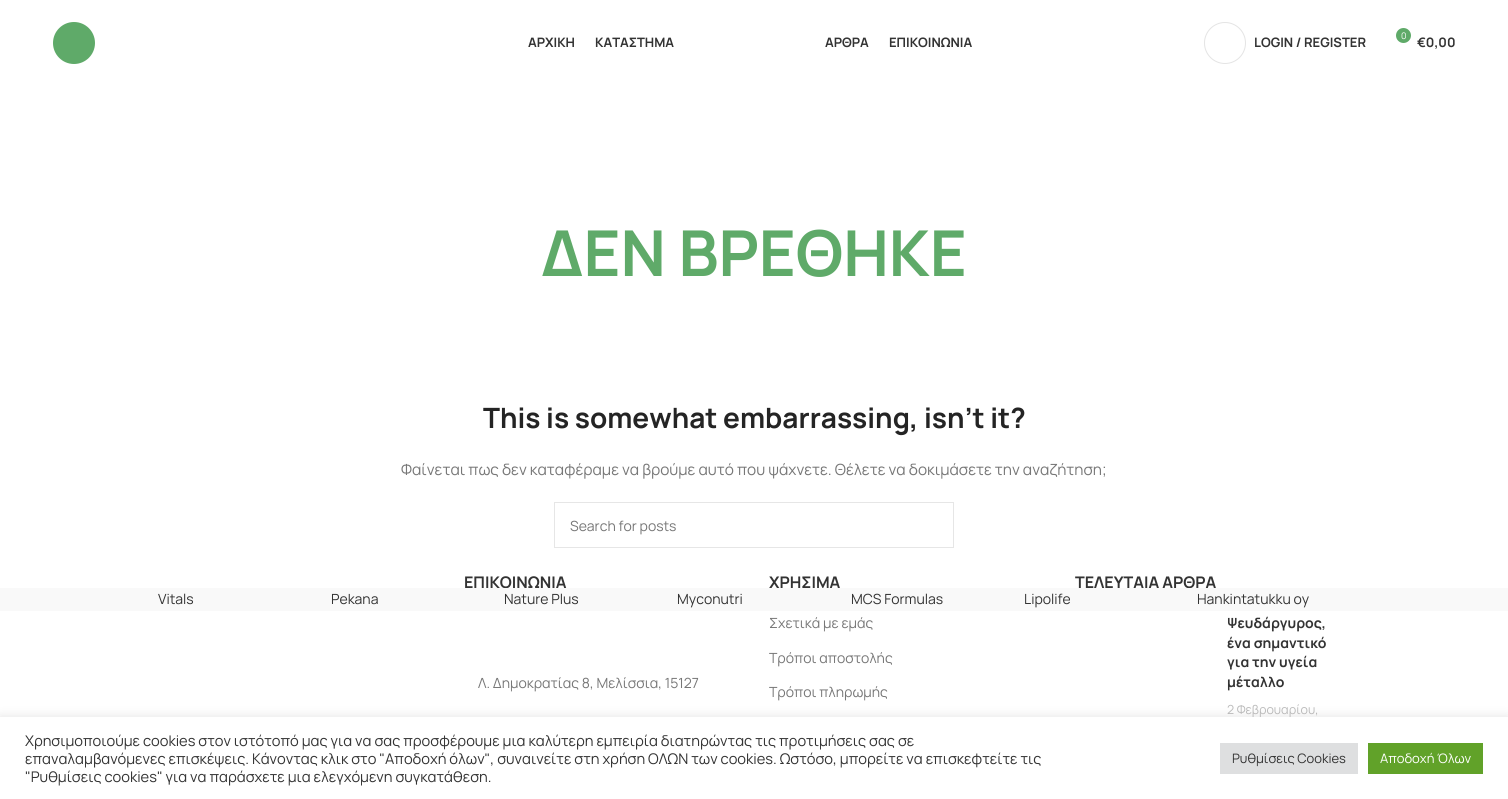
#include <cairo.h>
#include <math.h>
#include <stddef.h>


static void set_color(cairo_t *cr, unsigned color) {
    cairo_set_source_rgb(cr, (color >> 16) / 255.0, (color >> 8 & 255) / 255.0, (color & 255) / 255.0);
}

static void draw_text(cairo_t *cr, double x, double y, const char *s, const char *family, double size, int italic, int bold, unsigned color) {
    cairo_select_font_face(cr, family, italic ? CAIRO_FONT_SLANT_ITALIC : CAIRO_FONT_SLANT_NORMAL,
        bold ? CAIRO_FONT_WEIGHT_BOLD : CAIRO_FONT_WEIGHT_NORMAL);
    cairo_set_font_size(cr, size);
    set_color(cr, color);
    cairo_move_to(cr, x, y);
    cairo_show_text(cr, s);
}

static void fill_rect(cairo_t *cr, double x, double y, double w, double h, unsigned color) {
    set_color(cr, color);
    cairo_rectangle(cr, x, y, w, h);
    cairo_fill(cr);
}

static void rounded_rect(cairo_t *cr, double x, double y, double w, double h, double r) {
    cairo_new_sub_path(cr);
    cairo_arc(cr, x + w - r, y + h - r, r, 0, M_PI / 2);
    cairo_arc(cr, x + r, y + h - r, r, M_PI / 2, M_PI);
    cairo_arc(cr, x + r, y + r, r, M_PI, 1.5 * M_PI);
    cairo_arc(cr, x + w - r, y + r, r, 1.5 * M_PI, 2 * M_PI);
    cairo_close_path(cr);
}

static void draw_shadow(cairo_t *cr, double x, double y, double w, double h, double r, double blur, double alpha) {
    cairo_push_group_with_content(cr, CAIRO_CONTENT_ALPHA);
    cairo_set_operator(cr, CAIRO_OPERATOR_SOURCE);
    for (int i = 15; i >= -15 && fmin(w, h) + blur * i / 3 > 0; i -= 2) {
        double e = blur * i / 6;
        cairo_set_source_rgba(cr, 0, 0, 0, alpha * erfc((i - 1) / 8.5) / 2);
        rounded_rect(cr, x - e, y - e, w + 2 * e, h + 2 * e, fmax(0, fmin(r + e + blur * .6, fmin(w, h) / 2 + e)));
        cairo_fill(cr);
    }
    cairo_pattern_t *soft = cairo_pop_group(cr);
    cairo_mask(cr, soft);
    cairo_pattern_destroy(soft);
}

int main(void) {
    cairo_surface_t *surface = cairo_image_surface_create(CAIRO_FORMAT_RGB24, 1508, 799);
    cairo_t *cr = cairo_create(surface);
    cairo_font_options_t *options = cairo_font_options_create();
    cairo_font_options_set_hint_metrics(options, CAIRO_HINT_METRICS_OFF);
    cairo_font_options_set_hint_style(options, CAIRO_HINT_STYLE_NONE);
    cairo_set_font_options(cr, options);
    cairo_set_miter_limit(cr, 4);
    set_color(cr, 0xFFFFFF);
    cairo_paint(cr);
    set_color(cr, 0x5FAA69);
    cairo_arc(cr, 74, 43, 21, 0, 2 * M_PI);
    cairo_fill(cr);
    draw_text(cr, 528, 47, "ΑΡΧΙΚΗ", "Manrope", 13, 0, 1, 0x333333);
    draw_text(cr, 595, 47, "ΚΑΤΑΣΤΗΜΑ", "Manrope", 13, 0, 1, 0x333333);
    draw_text(cr, 825, 47, "ΑΡΘΡΑ", "Manrope", 13, 0, 1, 0x333333);
    draw_text(cr, 889, 47, "ΕΠΙΚΟΙΝΩΝΙΑ", "Manrope", 13, 0, 1, 0x333333);
    cairo_new_path(cr);
    cairo_arc(cr, 1225, 43, 20.5, 0, 2 * M_PI);
    set_color(cr, 0xE4E4E4);
    cairo_set_line_width(cr, 1);
    cairo_stroke(cr);
    draw_text(cr, 1254, 47, "LOGIN / REGISTER", "Manrope", 13, 0, 1, 0x333333);
    set_color(cr, 0x5FAA69);
    cairo_new_path(cr);
    cairo_arc(cr, 1403.5, 35.5, 7.5, 0, 2 * M_PI);
    cairo_fill(cr);
    draw_text(cr, 1401, 39, "0", "Manrope", 9, 0, 0, 0xFFFFFF);
    draw_text(cr, 1417, 47, "€0,00", "Manrope", 13, 0, 1, 0x333333);
    draw_text(cr, 541, 276, "ΔΕΝ ΒΡΕΘΗΚΕ", "Manrope", 63.25, 0, 1, 0x5FAA69);
    draw_text(cr, 483, 428, "This is somewhat embarrassing, isn’t it?", "Manrope", 28, 0, 1, 0x242424);
    draw_text(cr, 401, 475, "Φαίνεται πως δεν καταφέραμε να βρούμε αυτό που ψάχνετε. Θέλετε να δοκιμάσετε την αναζήτηση;", "Manrope", 15.4, 0, 0, 0x777777);
    cairo_rectangle(cr, 554.5, 502.5, 399, 45);
    set_color(cr, 0xE6E6E6);
    cairo_stroke(cr);
    draw_text(cr, 570, 531, "Search for posts", "Manrope", 14, 0, 0, 0x777777);
    draw_text(cr, 464, 588, "ΕΠΙΚΟΙΝΩΝΙΑ", "Manrope", 16, 0, 1, 0x333333);
    draw_text(cr, 478, 688, "Λ. Δημοκρατίας 8, Μελίσσια, 15127", "Manrope", 14, 0, 0, 0x777777);
    draw_text(cr, 769, 588, "ΧΡΗΣΙΜΑ", "Manrope", 16, 0, 1, 0x333333);
    draw_text(cr, 769, 628, "Σχετικά με εμάς", "Manrope", 14, 0, 0, 0x777777);
    draw_text(cr, 769, 663, "Τρόποι αποστολής", "Manrope", 14, 0, 0, 0x777777);
    draw_text(cr, 769, 697, "Τρόποι πληρωμής", "Manrope", 14, 0, 0, 0x777777);
    draw_text(cr, 1075, 588, "ΤΕΛΕΥΤΑΙΑ ΑΡΘΡΑ", "Manrope", 16, 0, 1, 0x333333);
    draw_text(cr, 1227, 628, "Ψευδάργυρος,", "Manrope", 14, 0, 1, 0x333333);
    draw_text(cr, 1227, 648, "ένα σημαντικό", "Manrope", 14, 0, 1, 0x333333);
    draw_text(cr, 1227, 667, "για την υγεία", "Manrope", 14, 0, 1, 0x333333);
    draw_text(cr, 1227, 687, "μέταλλο", "Manrope", 14, 0, 1, 0x333333);
    draw_text(cr, 1227, 714, "2 Φεβρουαρίου,", "Manrope", 12.5, 0, 0, 0xBBBBBB);
    fill_rect(cr, 0, 588, 1508, 23, 0xF9F9F9);
    draw_text(cr, 158, 604, "Vitals", "Manrope", 14, 0, 0, 0x333333);
    draw_text(cr, 331, 604, "Pekana", "Manrope", 14, 0, 0, 0x333333);
    draw_text(cr, 504, 604, "Nature Plus", "Manrope", 14, 0, 0, 0x333333);
    draw_text(cr, 677, 604, "Myconutri", "Manrope", 14, 0, 0, 0x333333);
    draw_text(cr, 851, 604, "MCS Formulas", "Manrope", 14, 0, 0, 0x333333);
    draw_text(cr, 1024, 604, "Lipolife", "Manrope", 14, 0, 0, 0x333333);
    draw_text(cr, 1197, 604, "Hankintatukku oy", "Manrope", 14, 0, 0, 0x333333);
    set_color(cr, 0xACABAB);
    draw_shadow(cr, 0, 716, 1508, 82, 0, 5, 0.3);
    fill_rect(cr, 0, 717, 1508, 82, 0xFFFFFF);
    draw_text(cr, 25, 746, "Χρησιμοποιούμε cookies στον ιστότοπό μας για να σας προσφέρουμε μια καλύτερη εμπειρία διατηρώντας τις προτιμήσεις σας σε", "Manrope", 14.67, 0, 0, 0x333333);
    draw_text(cr, 25, 764, "επαναλαμβανόμενες επισκέψεις. Κάνοντας κλικ στο \"Αποδοχή όλων\", συναινείτε στη χρήση ΟΛΩΝ των cookies. Ωστόσο, μπορείτε να επισκεφτείτε τις", "Manrope", 14.67, 0, 0, 0x333333);
    draw_text(cr, 25, 782, "\"Ρυθμίσεις cookies\" για να παράσχετε μια ελεγχόμενη συγκατάθεση.", "Manrope", 14.67, 0, 0, 0x333333);
    fill_rect(cr, 1220, 743, 138, 31, 0xDEDFE0);
    draw_text(cr, 1232, 763, "Ρυθμίσεις Cookies", "Manrope", 13, 0, 0, 0x333333);
    fill_rect(cr, 1368, 743, 115, 31, 0x61A229);
    draw_text(cr, 1380, 763, "Αποδοχή Όλων", "Manrope", 13, 0, 0, 0xFFFFFF);
    cairo_surface_write_to_png(surface, "output.png");
    cairo_font_options_destroy(options);
    cairo_destroy(cr);
    cairo_surface_destroy(surface);
    return 0;
}
